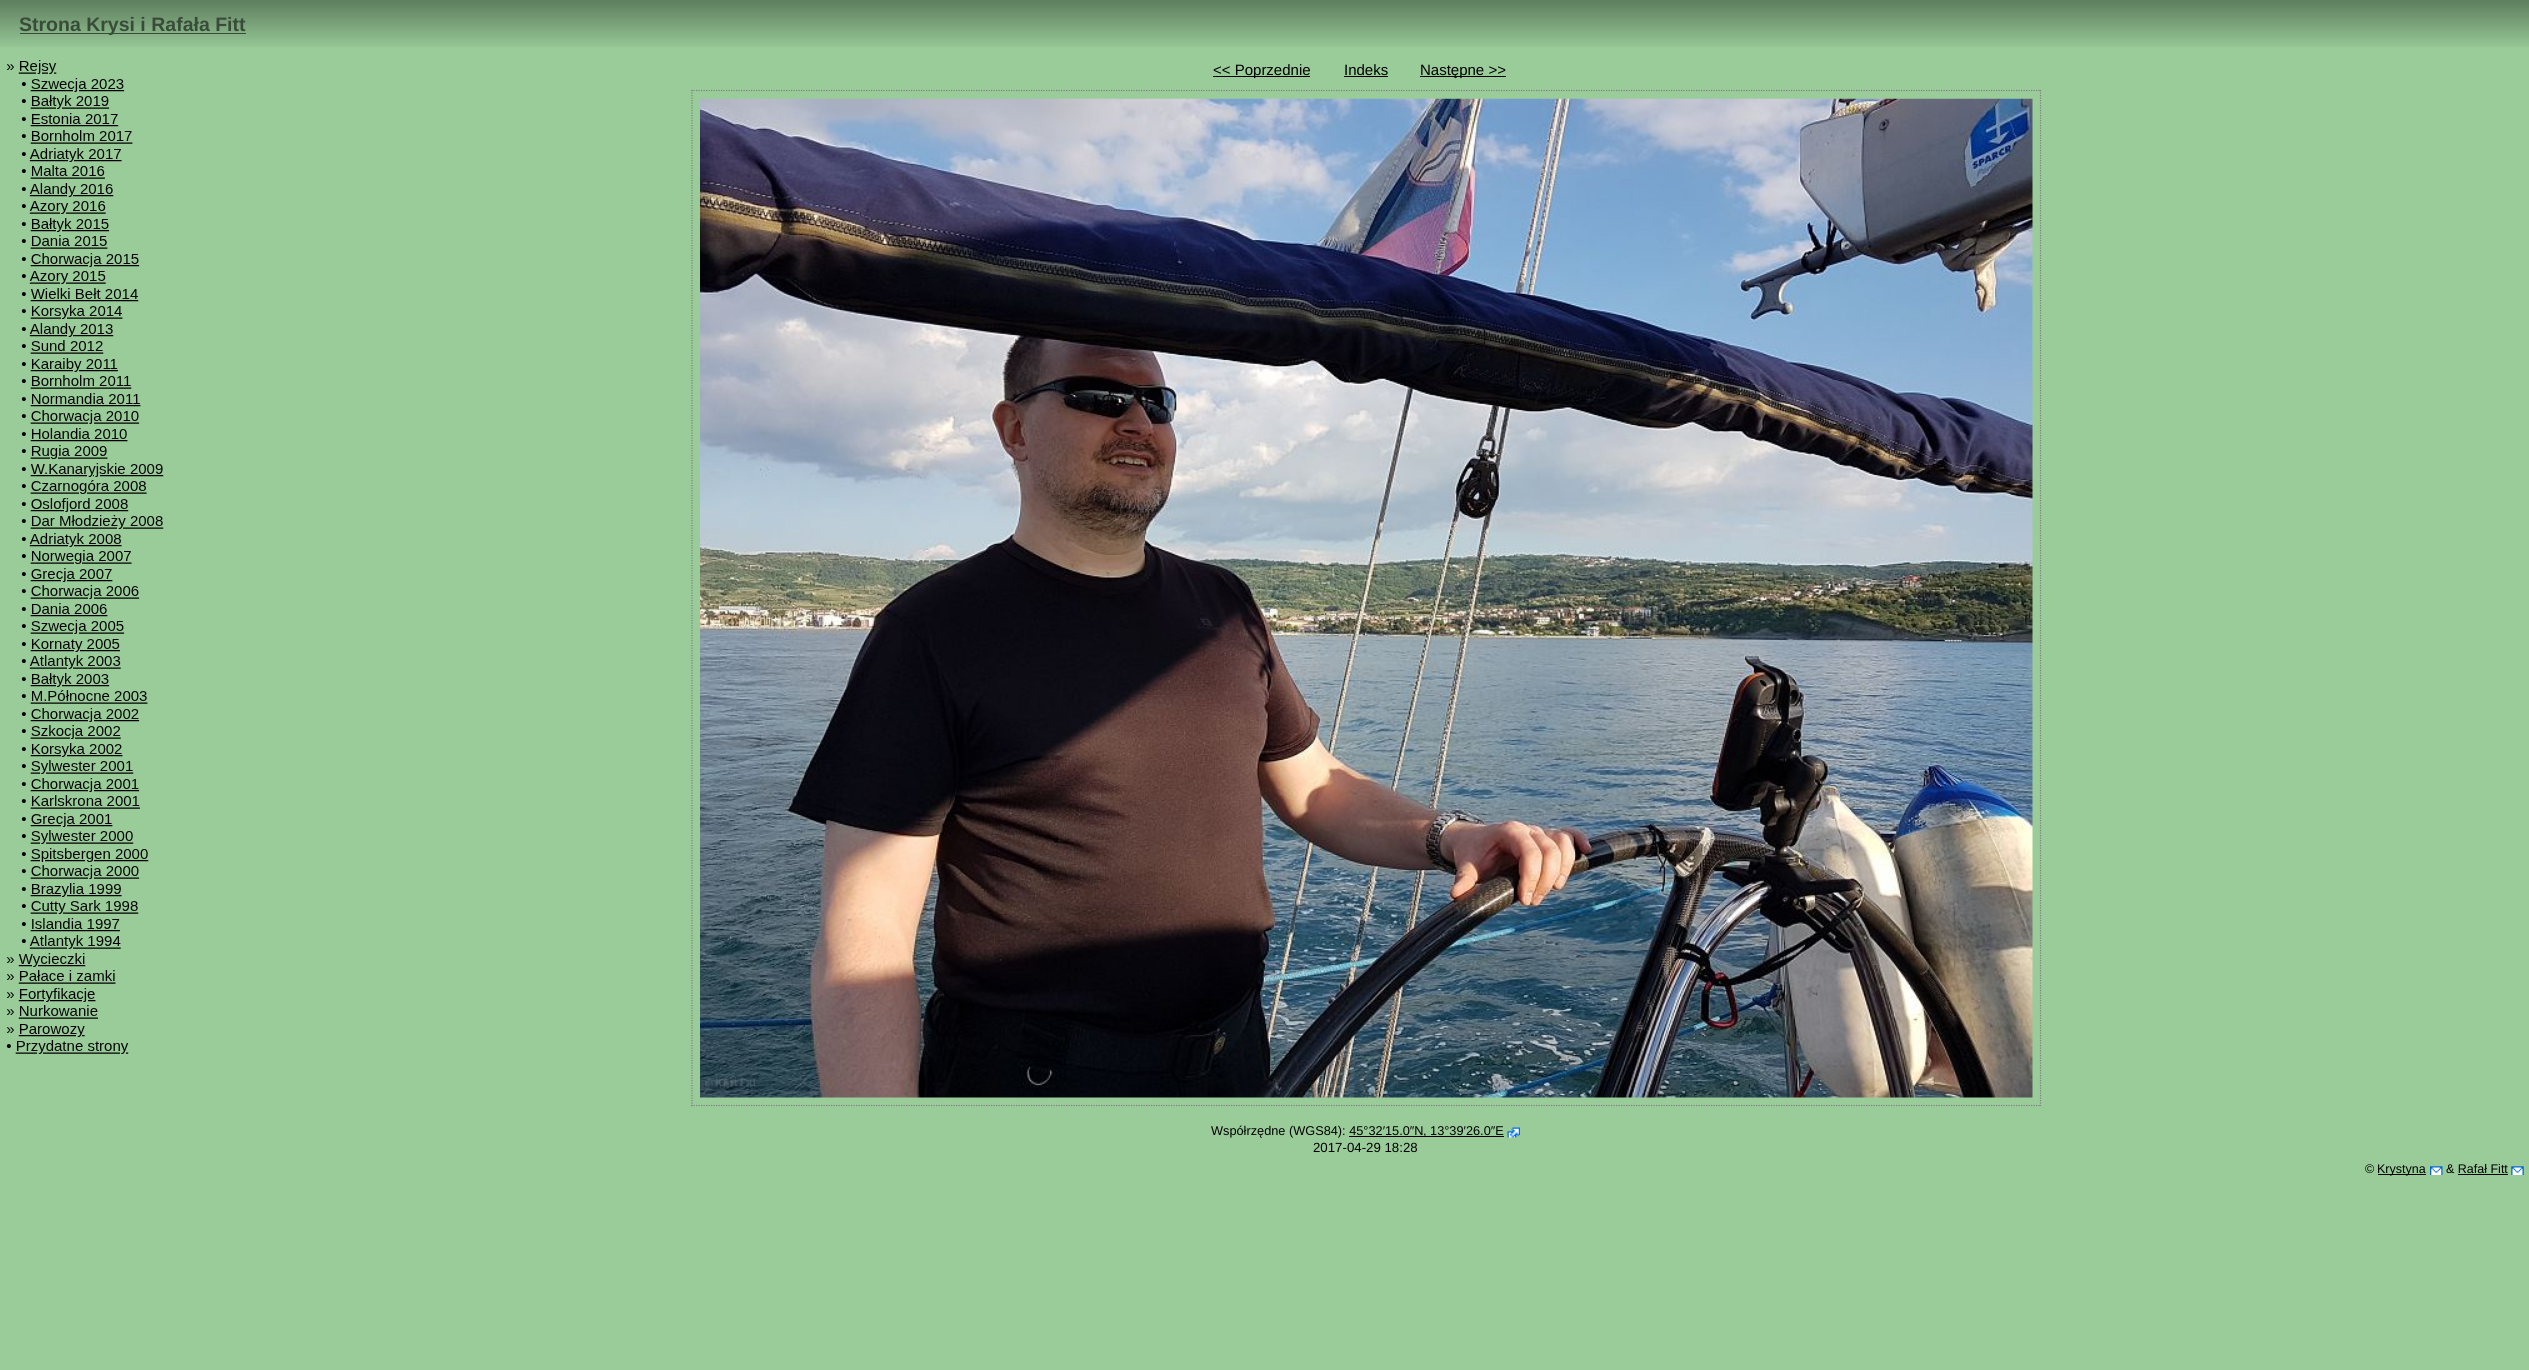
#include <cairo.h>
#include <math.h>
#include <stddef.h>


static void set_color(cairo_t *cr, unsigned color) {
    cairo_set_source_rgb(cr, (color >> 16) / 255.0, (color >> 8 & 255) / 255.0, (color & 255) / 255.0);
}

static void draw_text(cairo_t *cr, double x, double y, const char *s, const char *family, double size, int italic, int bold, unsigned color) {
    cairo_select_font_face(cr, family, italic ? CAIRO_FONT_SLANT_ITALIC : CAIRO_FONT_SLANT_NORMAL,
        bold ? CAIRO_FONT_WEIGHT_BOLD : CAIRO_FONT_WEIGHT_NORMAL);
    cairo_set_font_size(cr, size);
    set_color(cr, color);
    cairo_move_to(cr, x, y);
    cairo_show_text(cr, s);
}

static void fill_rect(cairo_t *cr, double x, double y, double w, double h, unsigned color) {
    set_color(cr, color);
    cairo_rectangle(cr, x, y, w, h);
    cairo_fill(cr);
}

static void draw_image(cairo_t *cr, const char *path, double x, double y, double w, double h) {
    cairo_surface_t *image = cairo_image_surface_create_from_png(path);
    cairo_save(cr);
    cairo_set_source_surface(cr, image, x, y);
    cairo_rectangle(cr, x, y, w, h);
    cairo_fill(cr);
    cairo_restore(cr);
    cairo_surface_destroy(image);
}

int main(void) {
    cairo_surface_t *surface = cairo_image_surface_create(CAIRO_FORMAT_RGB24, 2529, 1370);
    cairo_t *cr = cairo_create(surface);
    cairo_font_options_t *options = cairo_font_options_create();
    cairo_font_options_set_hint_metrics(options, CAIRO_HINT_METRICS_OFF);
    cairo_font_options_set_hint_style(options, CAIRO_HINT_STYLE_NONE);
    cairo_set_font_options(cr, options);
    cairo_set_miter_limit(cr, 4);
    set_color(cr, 0x99CC99);
    cairo_paint(cr);
    draw_image(cr, "assets/img1.png", 0, 0, 2529, 47);
    fill_rect(cr, 20, 33, 226, 1, 0x394C39);
    draw_text(cr, 19, 31, "Strona Krysi i Rafała Fitt", "Liberation Sans", 19.5, 0, 1, 0x394C39);
    draw_image(cr, "assets/img2.png", 6, 60, 158, 994);
    fill_rect(cr, 1213, 76, 97, 1, 0x000000);
    draw_text(cr, 1213, 75, "<< Poprzednie", "Liberation Sans", 15, 0, 0, 0x000000);
    draw_text(cr, 1344, 75, "Indeks", "Liberation Sans", 15, 0, 0, 0x000000);
    fill_rect(cr, 1344, 76, 44, 1, 0x000000);
    fill_rect(cr, 1420, 76, 86, 1, 0x000000);
    draw_text(cr, 1420, 75, "Następne >>", "Liberation Sans", 15, 0, 0, 0x000000);
    cairo_new_path(cr);
    cairo_move_to(cr, 691, 90.5);
    cairo_line_to(cr, 2041, 90.5);
    set_color(cr, 0x808080);
    cairo_set_line_width(cr, 1.2);
    cairo_set_dash(cr, (double[]){1.25, 1.25}, 2, 0);
    cairo_stroke(cr);
    cairo_new_path(cr);
    cairo_move_to(cr, 2040.5, 90);
    cairo_line_to(cr, 2040.5, 1106);
    cairo_stroke(cr);
    cairo_new_path(cr);
    cairo_move_to(cr, 691, 1105.5);
    cairo_line_to(cr, 2041, 1105.5);
    cairo_stroke(cr);
    cairo_new_path(cr);
    cairo_move_to(cr, 692, 90);
    cairo_line_to(cr, 692, 1106);
    cairo_stroke(cr);
    draw_image(cr, "assets/img3.png", 700, 98, 1333, 1000);
    draw_text(cr, 1211, 1135, "Współrzędne (WGS84): 45°32′15.0″N", "Liberation Sans", 12.75, 0, 0, 0x000000);
    fill_rect(cr, 1349, 1136, 155, 1, 0x000000);
    draw_text(cr, 1423, 1135, ", 13°39′26.0″E", "Liberation Sans", 12.75, 0, 0, 0x000000);
    draw_image(cr, "assets/img4.png", 1507, 1127, 13, 11);
    draw_text(cr, 1313, 1152, "2017-04-29 18:28", "Liberation Sans", 13.25, 0, 0, 0x000000);
    draw_text(cr, 2365, 1173, "©", "Liberation Sans", 12.5, 0, 0, 0x000000);
    fill_rect(cr, 2378, 1174, 48, 1, 0x000000);
    draw_text(cr, 2377, 1173, "Krystyna", "Liberation Sans", 12.5, 0, 0, 0x000000);
    draw_image(cr, "assets/img5.png", 2430, 1166, 13, 9);
    draw_text(cr, 2446, 1173, "& Rafał Fitt", "Liberation Sans", 12.5, 0, 0, 0x000000);
    draw_image(cr, "assets/img6.png", 2511, 1166, 13, 9);
    fill_rect(cr, 2458, 1174, 50, 1, 0x000000);
    cairo_surface_write_to_png(surface, "output.png");
    cairo_font_options_destroy(options);
    cairo_destroy(cr);
    cairo_surface_destroy(surface);
    return 0;
}
